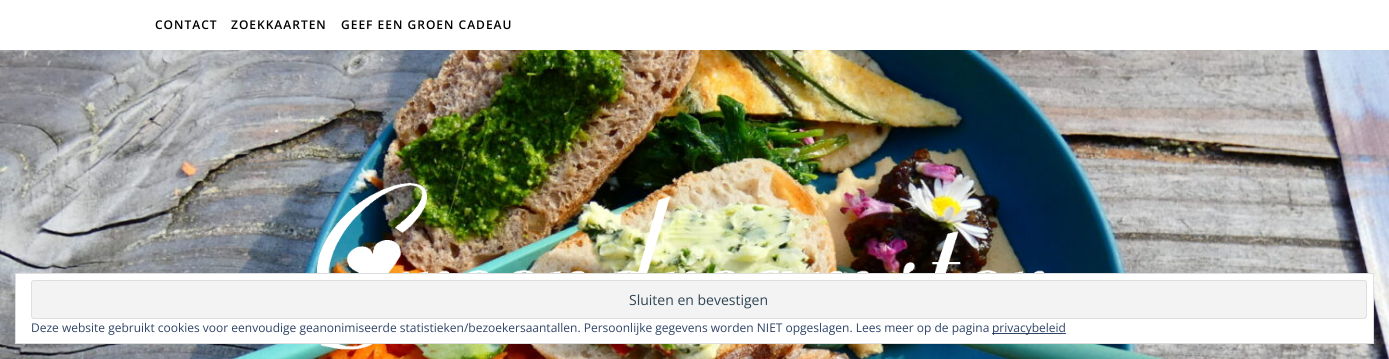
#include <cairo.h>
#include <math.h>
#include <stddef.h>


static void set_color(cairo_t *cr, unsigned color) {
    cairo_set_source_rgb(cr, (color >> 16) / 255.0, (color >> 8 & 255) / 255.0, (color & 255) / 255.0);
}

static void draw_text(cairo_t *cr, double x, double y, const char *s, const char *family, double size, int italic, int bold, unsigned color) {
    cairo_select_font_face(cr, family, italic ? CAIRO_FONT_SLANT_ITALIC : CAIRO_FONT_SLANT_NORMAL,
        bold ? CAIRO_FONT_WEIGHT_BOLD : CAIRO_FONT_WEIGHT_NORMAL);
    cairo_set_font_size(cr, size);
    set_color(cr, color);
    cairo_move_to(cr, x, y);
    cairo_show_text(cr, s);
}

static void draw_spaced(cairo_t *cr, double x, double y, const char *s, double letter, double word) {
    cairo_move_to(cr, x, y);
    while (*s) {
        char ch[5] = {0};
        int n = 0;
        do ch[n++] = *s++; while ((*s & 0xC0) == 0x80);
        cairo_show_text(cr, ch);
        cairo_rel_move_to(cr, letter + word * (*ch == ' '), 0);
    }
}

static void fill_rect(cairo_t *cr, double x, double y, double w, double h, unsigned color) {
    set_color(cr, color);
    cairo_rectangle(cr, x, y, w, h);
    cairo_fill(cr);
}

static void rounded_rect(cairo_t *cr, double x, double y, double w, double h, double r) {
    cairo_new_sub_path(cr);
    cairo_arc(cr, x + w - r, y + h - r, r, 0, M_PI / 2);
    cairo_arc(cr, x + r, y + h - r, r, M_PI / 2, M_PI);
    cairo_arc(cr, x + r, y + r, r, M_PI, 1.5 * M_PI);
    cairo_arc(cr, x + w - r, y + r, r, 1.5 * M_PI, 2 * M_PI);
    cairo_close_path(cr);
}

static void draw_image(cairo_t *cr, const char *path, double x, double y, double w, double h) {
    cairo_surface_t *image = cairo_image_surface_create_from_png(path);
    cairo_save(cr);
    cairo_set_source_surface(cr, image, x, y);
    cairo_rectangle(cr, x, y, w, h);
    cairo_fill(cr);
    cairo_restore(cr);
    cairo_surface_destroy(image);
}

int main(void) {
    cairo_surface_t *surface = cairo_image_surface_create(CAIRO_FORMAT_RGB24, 1389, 359);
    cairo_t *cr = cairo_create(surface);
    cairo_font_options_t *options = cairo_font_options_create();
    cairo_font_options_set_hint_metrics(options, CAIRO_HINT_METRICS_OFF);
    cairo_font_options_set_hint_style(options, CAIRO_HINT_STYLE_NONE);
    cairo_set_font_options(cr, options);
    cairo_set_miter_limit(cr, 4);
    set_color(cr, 0xFFFFFF);
    cairo_paint(cr);
    cairo_select_font_face(cr, "Open Sans SemiBold", CAIRO_FONT_SLANT_NORMAL, CAIRO_FONT_WEIGHT_NORMAL);
    cairo_set_font_size(cr, 12);
    set_color(cr, 0x000000);
    draw_spaced(cr, 155, 29, "CONTACT", 1, 0);
    draw_spaced(cr, 231, 29, "ZOEKKAARTEN", 1, 0);
    draw_spaced(cr, 341, 29, "GEEF EEN GROEN CADEAU", 1, 0);
    draw_image(cr, "assets/img1.png", 0, 50, 1389, 309);
    draw_image(cr, "assets/img2.png", 317, 183, 728, 167);
    set_color(cr, 0xFFFFFF);
    cairo_rectangle(cr, 15.5, 273.5, 1358, 70);
    cairo_fill_preserve(cr);
    set_color(cr, 0xDEDEDE);
    cairo_set_line_width(cr, 1);
    cairo_stroke(cr);
    set_color(cr, 0xF3F3F3);
    rounded_rect(cr, 31.5, 280.5, 1335, 38, 2.5);
    cairo_fill_preserve(cr);
    set_color(cr, 0xDEDEDE);
    cairo_stroke(cr);
    draw_text(cr, 629, 305, "Sluiten en bevestigen", "Open Sans", 14, 0, 0, 0x2E4453);
    draw_text(cr, 31, 332, "Deze website gebruikt cookies voor eenvoudige geanonimiseerde statistieken/bezoekersaantallen. Persoonlijke gegevens worden NIET opgeslagen. Lees meer op de pagina", "Open Sans", 12, 0, 0, 0x2E4467);
    fill_rect(cr, 992, 333, 74, 1, 0x2E4467);
    draw_text(cr, 992, 332, "privacybeleid", "Open Sans", 12, 0, 0, 0x2E4467);
    cairo_surface_write_to_png(surface, "output.png");
    cairo_font_options_destroy(options);
    cairo_destroy(cr);
    cairo_surface_destroy(surface);
    return 0;
}
